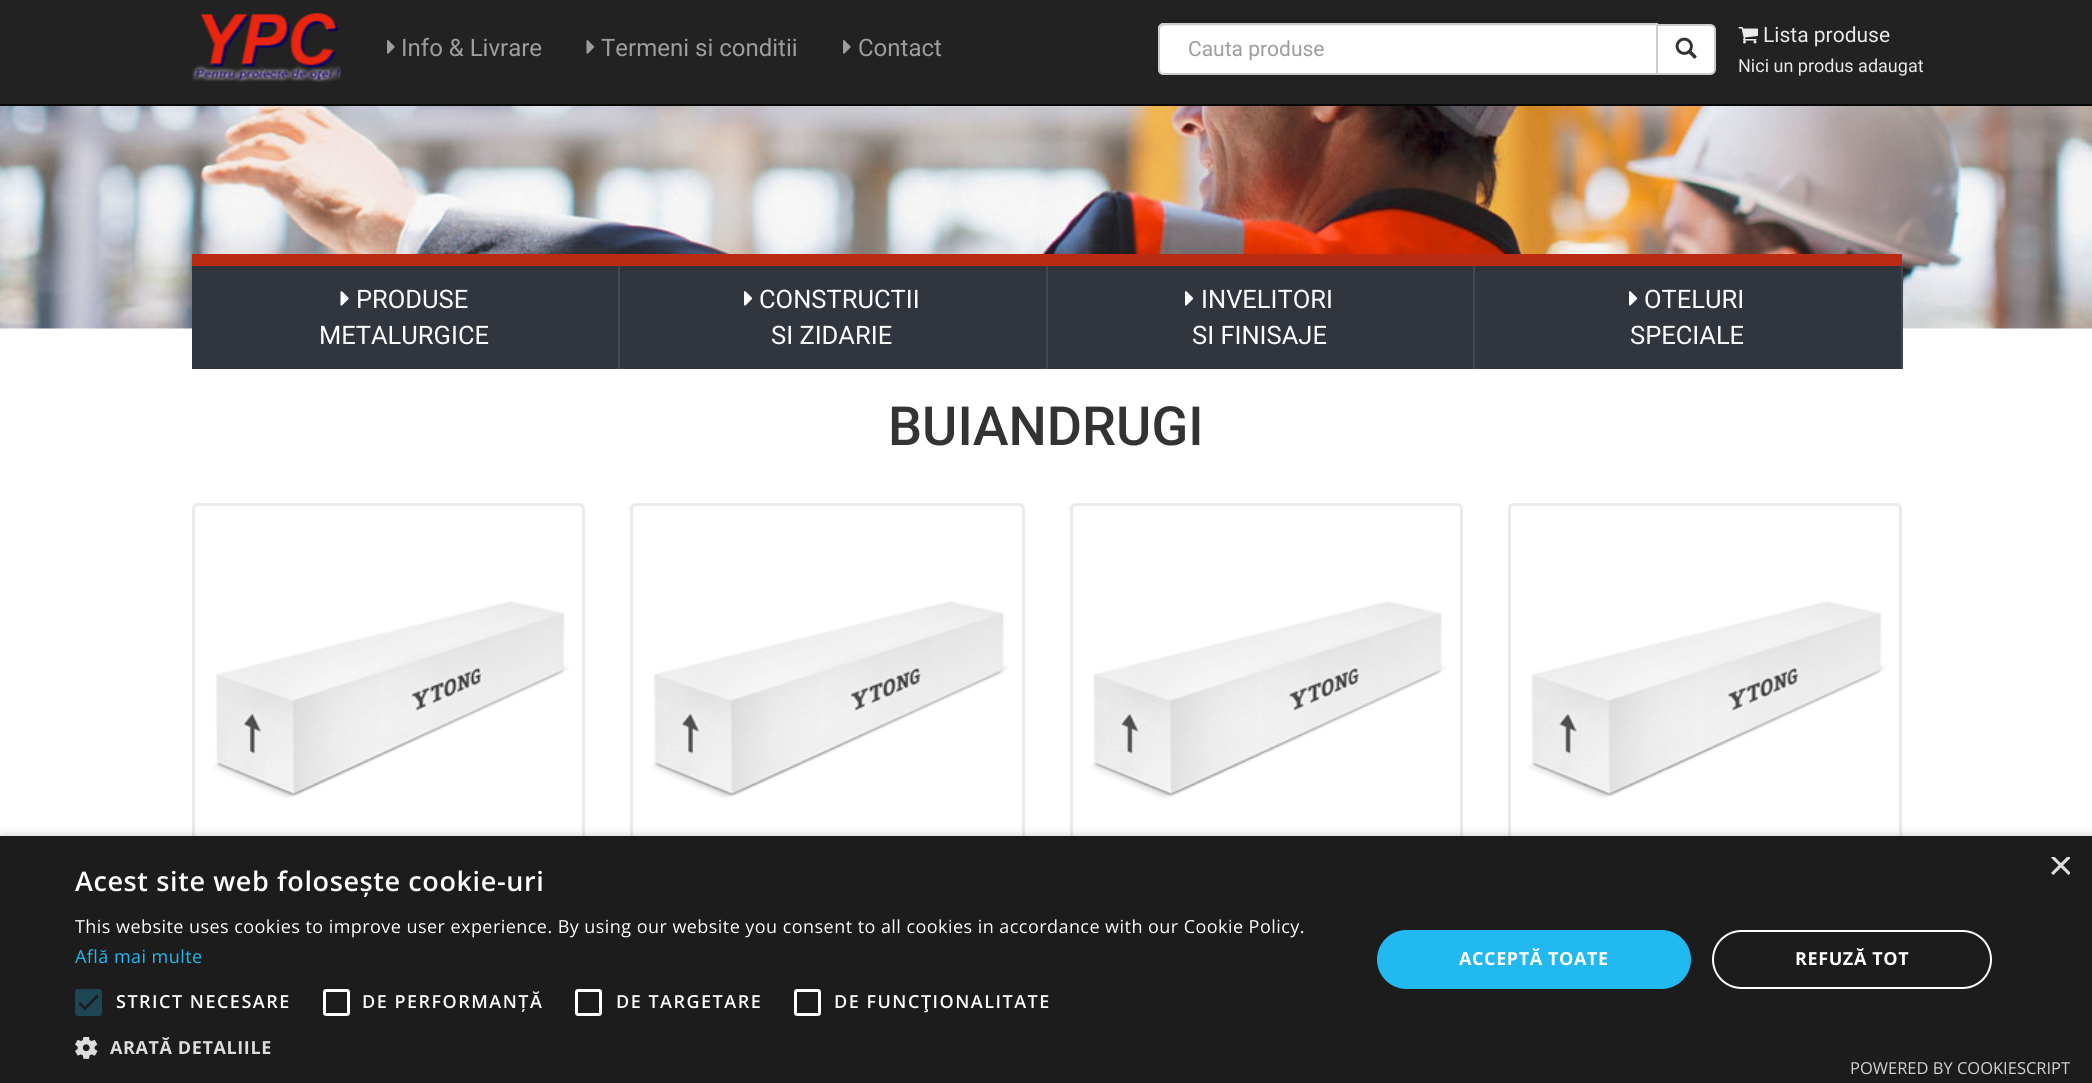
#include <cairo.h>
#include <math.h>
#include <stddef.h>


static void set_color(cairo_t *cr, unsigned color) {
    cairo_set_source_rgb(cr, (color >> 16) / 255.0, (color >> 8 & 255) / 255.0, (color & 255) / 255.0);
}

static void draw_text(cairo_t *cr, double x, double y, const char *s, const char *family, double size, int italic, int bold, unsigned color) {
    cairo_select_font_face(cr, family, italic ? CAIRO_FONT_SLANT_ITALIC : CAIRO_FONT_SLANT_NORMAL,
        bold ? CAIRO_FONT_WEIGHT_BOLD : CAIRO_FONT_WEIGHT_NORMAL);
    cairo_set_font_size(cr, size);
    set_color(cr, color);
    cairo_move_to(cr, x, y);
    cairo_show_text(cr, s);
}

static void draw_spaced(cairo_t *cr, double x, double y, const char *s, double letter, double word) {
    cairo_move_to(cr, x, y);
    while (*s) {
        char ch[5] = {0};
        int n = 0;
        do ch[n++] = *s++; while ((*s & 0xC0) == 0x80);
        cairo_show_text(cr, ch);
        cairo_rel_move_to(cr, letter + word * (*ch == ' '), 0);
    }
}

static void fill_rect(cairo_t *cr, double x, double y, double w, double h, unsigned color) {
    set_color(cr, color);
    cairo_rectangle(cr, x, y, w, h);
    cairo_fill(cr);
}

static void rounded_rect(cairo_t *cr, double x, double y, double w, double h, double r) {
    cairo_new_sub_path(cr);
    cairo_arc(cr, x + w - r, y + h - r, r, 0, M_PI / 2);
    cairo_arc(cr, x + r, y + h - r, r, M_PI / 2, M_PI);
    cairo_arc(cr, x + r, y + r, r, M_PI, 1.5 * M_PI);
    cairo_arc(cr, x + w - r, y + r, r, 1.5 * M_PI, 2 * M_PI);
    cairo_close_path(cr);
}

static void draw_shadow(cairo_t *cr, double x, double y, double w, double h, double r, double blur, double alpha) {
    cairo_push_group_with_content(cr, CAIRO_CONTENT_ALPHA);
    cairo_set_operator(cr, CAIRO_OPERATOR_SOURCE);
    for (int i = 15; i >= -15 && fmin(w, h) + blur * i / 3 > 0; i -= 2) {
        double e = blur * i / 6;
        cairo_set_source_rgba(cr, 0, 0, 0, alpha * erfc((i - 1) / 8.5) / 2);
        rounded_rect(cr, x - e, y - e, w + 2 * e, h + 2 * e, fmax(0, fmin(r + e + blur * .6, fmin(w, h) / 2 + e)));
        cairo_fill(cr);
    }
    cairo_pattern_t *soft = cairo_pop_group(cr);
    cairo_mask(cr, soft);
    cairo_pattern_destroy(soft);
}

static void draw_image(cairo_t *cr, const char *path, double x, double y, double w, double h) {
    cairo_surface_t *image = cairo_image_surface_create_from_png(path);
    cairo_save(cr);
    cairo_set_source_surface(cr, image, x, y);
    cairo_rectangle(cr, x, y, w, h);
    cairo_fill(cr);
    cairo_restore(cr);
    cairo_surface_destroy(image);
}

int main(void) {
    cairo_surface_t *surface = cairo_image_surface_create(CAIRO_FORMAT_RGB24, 2092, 1083);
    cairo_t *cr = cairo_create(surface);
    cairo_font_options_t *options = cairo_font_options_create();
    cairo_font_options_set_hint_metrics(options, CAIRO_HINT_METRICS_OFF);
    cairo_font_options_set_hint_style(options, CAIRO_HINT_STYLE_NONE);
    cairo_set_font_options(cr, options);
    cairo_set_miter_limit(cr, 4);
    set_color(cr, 0xFFFFFF);
    cairo_paint(cr);
    fill_rect(cr, 0, 0, 2092, 104, 0x222222);
    fill_rect(cr, 0, 104, 2092, 2, 0x080808);
    draw_image(cr, "assets/img1.png", 192, 13, 150, 69);
    draw_image(cr, "assets/img2.png", 387, 40, 8, 14);
    draw_text(cr, 401, 56, "Info & Livrare", "Roboto", 24, 0, 0, 0x9D9D9D);
    draw_image(cr, "assets/img3.png", 586, 40, 9, 14);
    draw_text(cr, 601, 56, "Termeni si conditii", "Roboto", 24, 0, 0, 0x9D9D9D);
    draw_image(cr, "assets/img2.png", 843, 40, 8, 14);
    draw_text(cr, 858, 56, "Contact", "Roboto", 24, 0, 0, 0x9D9D9D);
    set_color(cr, 0xFFFFFF);
    cairo_new_path(cr);
    cairo_move_to(cr, 1164, 23);
    cairo_line_to(cr, 1658, 23);
    cairo_line_to(cr, 1658, 75);
    cairo_line_to(cr, 1164, 75);
    cairo_curve_to(cr, 1160.5, 75, 1158, 72.5, 1158, 69);
    cairo_line_to(cr, 1158, 29);
    cairo_curve_to(cr, 1158, 25.5, 1160.5, 23, 1164, 23);
    cairo_close_path(cr);
    cairo_fill(cr);
    set_color(cr, 0xECECEC);
    cairo_new_path(cr);
    cairo_move_to(cr, 1164, 26);
    cairo_line_to(cr, 1656, 26);
    cairo_line_to(cr, 1656, 24);
    cairo_line_to(cr, 1165, 24);
    cairo_curve_to(cr, 1162, 24, 1160, 26, 1160, 29);
    cairo_line_to(cr, 1160, 30);
    cairo_curve_to(cr, 1160, 28, 1162, 26, 1164, 26);
    cairo_close_path(cr);
    cairo_fill(cr);
    cairo_new_path(cr);
    cairo_move_to(cr, 1164, 24);
    cairo_line_to(cr, 1657, 24);
    cairo_line_to(cr, 1657, 74);
    cairo_line_to(cr, 1164, 74);
    cairo_curve_to(cr, 1161, 74, 1159, 72, 1159, 69);
    cairo_line_to(cr, 1159, 29);
    cairo_curve_to(cr, 1159, 26, 1161, 24, 1164, 24);
    cairo_close_path(cr);
    set_color(cr, 0xCCCCCC);
    cairo_stroke(cr);
    draw_text(cr, 1188, 56, "Cauta produse", "Roboto", 21, 0, 0, 0x9D9D9D);
    set_color(cr, 0xFFFFFF);
    cairo_new_path(cr);
    cairo_move_to(cr, 1657, 25);
    cairo_line_to(cr, 1710, 25);
    cairo_curve_to(cr, 1713, 25, 1715, 27, 1715, 30);
    cairo_line_to(cr, 1715, 69);
    cairo_curve_to(cr, 1715, 72, 1713, 74, 1710, 74);
    cairo_line_to(cr, 1657, 74);
    cairo_close_path(cr);
    cairo_fill_preserve(cr);
    set_color(cr, 0xCCCCCC);
    cairo_stroke(cr);
    draw_image(cr, "assets/img4.png", 1675, 37, 22, 22);
    draw_image(cr, "assets/img5.png", 1738, 27, 20, 17);
    draw_text(cr, 1763, 42, "Lista produse", "Roboto", 21, 0, 0, 0xEAEAEA);
    draw_text(cr, 1738, 72, "Nici un produs adaugat", "Roboto", 18, 0, 0, 0xEAEAEA);
    draw_image(cr, "assets/img6.png", 0, 106, 2092, 223);
    fill_rect(cr, 192, 266, 1709, 103, 0x31353D);
    fill_rect(cr, 192, 254, 1710, 12, 0xBB2A13);
    fill_rect(cr, 618, 266, 2, 103, 0x44474E);
    draw_image(cr, "assets/img7.png", 340, 291, 9, 15);
    draw_text(cr, 356, 308, "PRODUSE", "Roboto", 25.5, 0, 0, 0xFFFFFF);
    draw_text(cr, 319, 344, "METALURGICE", "Roboto", 25.5, 0, 0, 0xFFFFFF);
    fill_rect(cr, 1046, 266, 2, 103, 0x44474E);
    draw_image(cr, "assets/img8.png", 744, 291, 9, 15);
    draw_text(cr, 759, 308, "CONSTRUCTII", "Roboto", 25.5, 0, 0, 0xFFFFFF);
    draw_text(cr, 771, 344, "SI ZIDARIE", "Roboto", 25.5, 0, 0, 0xFFFFFF);
    fill_rect(cr, 1473, 266, 2, 103, 0x44474E);
    draw_image(cr, "assets/img8.png", 1185, 291, 9, 15);
    draw_text(cr, 1201, 308, "INVELITORI", "Roboto", 25.5, 0, 0, 0xFFFFFF);
    draw_text(cr, 1192, 344, "SI FINISAJE", "Roboto", 25.5, 0, 0, 0xFFFFFF);
    fill_rect(cr, 1901, 266, 2, 103, 0x44474E);
    draw_image(cr, "assets/img8.png", 1629, 291, 9, 15);
    draw_text(cr, 1644, 308, "OTELURI", "Roboto", 25.5, 0, 0, 0xFFFFFF);
    draw_text(cr, 1630, 344, "SPECIALE", "Roboto", 25.5, 0, 0, 0xFFFFFF);
    draw_text(cr, 888, 445, "BUIANDRUGI", "Roboto Medium", 54, 0, 0, 0x333333);
    rounded_rect(cr, 193.5, 504.5, 390, 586, 4.5);
    set_color(cr, 0xEAEAEA);
    cairo_set_line_width(cr, 3);
    cairo_stroke(cr);
    draw_image(cr, "assets/img9.png", 213, 601, 356, 198);
    rounded_rect(cr, 631.5, 504.5, 392, 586, 4.5);
    cairo_stroke(cr);
    draw_image(cr, "assets/img10.png", 651, 601, 357, 198);
    rounded_rect(cr, 1071.5, 504.5, 390, 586, 4.5);
    cairo_stroke(cr);
    draw_image(cr, "assets/img11.png", 1090, 601, 356, 198);
    rounded_rect(cr, 1509.5, 504.5, 391, 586, 4.5);
    cairo_stroke(cr);
    draw_image(cr, "assets/img12.png", 1528, 601, 358, 198);
    set_color(cr, 0x000000);
    draw_shadow(cr, 2, 839, 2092, 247, 0, 6, 0.35);
    fill_rect(cr, 0, 836, 2092, 247, 0x1C1C1C);
    cairo_save(cr);
    cairo_rectangle(cr, 2048, 857, 22, 22);
    cairo_clip(cr);
    draw_text(cr, 2048, 880, "×", "Liberation Sans", 44, 0, 0, 0xDDDDDD);
    cairo_restore(cr);
    cairo_select_font_face(cr, "Open Sans SemiBold", CAIRO_FONT_SLANT_NORMAL, CAIRO_FONT_WEIGHT_NORMAL);
    cairo_set_font_size(cr, 27);
    set_color(cr, 0xFFFFFF);
    draw_spaced(cr, 75, 891, "Acest site web folosește cookie-uri", 0.6, 0);
    cairo_select_font_face(cr, "Open Sans", CAIRO_FONT_SLANT_NORMAL, CAIRO_FONT_WEIGHT_NORMAL);
    cairo_set_font_size(cr, 18);
    draw_spaced(cr, 75, 933, "This website uses cookies to improve user experience. By using our website you consent to all cookies in accordance with our Cookie Policy.", 0.45, 0);
    set_color(cr, 0x22B8F0);
    draw_spaced(cr, 75, 963, "Află mai multe", 0.45, 0);
    set_color(cr, 0x1E4553);
    rounded_rect(cr, 75, 989, 27, 27, 3);
    cairo_fill(cr);
    cairo_new_path(cr);
    cairo_move_to(cr, 79.5, 1003);
    cairo_line_to(cr, 85, 1008.5);
    cairo_line_to(cr, 98, 995.5);
    set_color(cr, 0x1C1C1C);
    cairo_set_line_width(cr, 2.7);
    cairo_stroke(cr);
    cairo_select_font_face(cr, "Open Sans SemiBold", CAIRO_FONT_SLANT_NORMAL, CAIRO_FONT_WEIGHT_NORMAL);
    set_color(cr, 0xFFFFFF);
    draw_spaced(cr, 116, 1008, "STRICT NECESARE", 1.5, 0);
    rounded_rect(cr, 324.5, 990.5, 24, 24, 1.5);
    cairo_set_line_width(cr, 3);
    cairo_stroke(cr);
    draw_spaced(cr, 362, 1008, "DE PERFORMANȚĂ", 1.5, 0);
    rounded_rect(cr, 576.5, 990.5, 24, 24, 1.5);
    cairo_stroke(cr);
    draw_spaced(cr, 616, 1008, "DE TARGETARE", 1.5, 0);
    rounded_rect(cr, 795.5, 990.5, 24, 24, 1.5);
    cairo_stroke(cr);
    draw_spaced(cr, 834, 1008, "DE FUNCŢIONALITATE", 1.5, 0);
    draw_image(cr, "assets/img13.png", 75, 1037, 23, 22);
    cairo_select_font_face(cr, "Open Sans", CAIRO_FONT_SLANT_NORMAL, CAIRO_FONT_WEIGHT_BOLD);
    set_color(cr, 0xDDDDDD);
    draw_spaced(cr, 110, 1054, "ARATĂ DETALIILE", 0.6, 0);
    set_color(cr, 0x22B8F0);
    rounded_rect(cr, 1377, 930, 314, 59, 29.5);
    cairo_fill(cr);
    set_color(cr, 0xFFFFFF);
    draw_spaced(cr, 1459, 965, "ACCEPTĂ TOATE", 0.6, 0);
    rounded_rect(cr, 1713, 931, 278, 57, 28.5);
    cairo_set_line_width(cr, 2);
    cairo_stroke(cr);
    draw_spaced(cr, 1795, 965, "REFUZĂ TOT", 0.6, 0);
    draw_text(cr, 1850, 1074, "POWERED BY COOKIESCRIPT", "Open Sans", 16.5, 0, 0, 0xD2D2D2);
    cairo_surface_write_to_png(surface, "output.png");
    cairo_font_options_destroy(options);
    cairo_destroy(cr);
    cairo_surface_destroy(surface);
    return 0;
}
